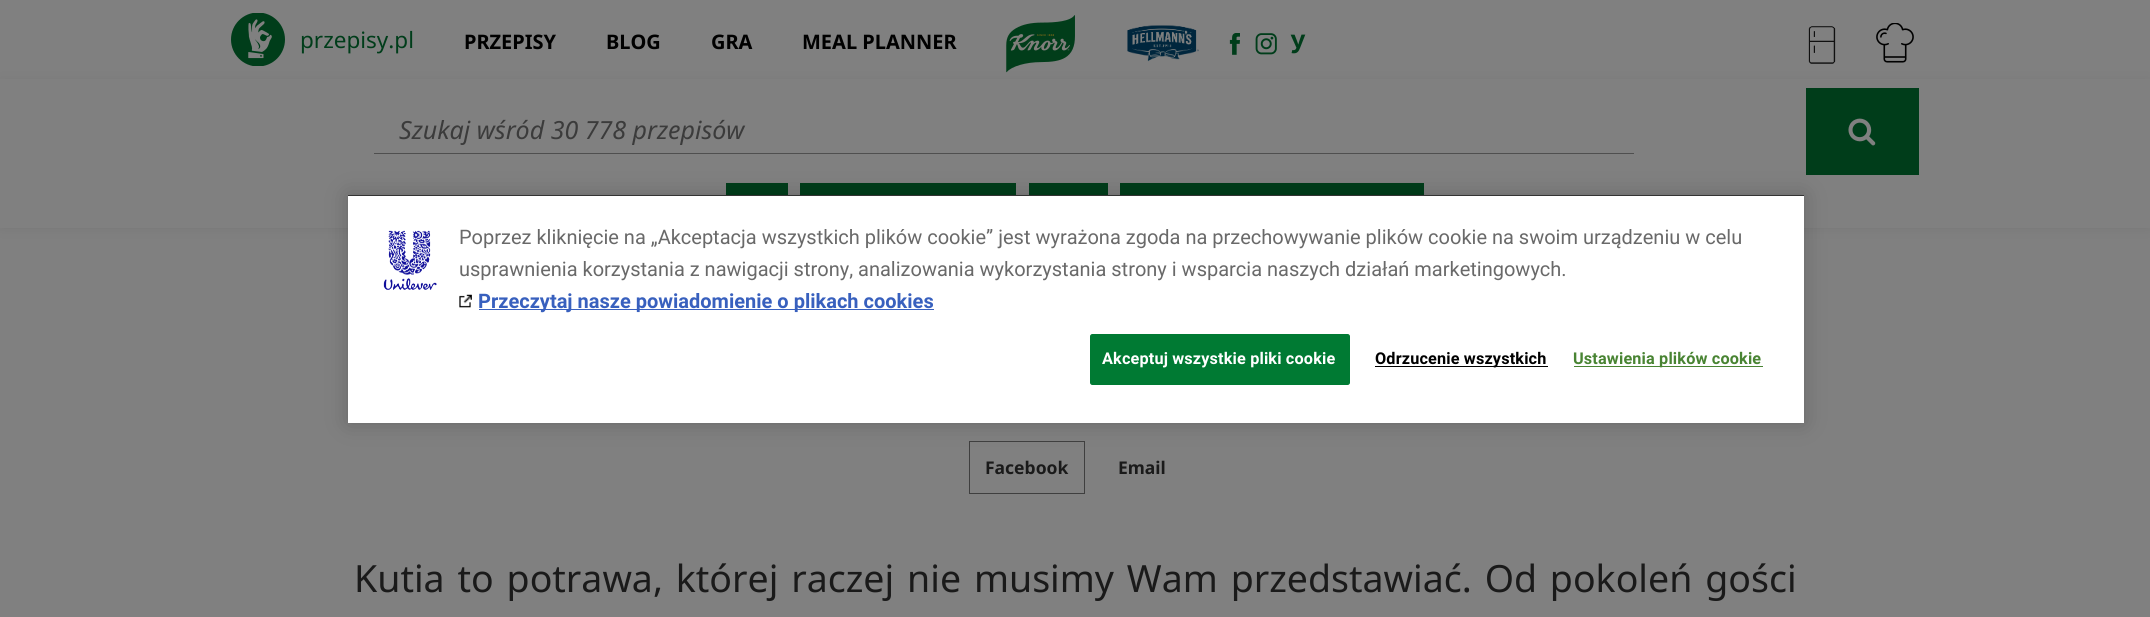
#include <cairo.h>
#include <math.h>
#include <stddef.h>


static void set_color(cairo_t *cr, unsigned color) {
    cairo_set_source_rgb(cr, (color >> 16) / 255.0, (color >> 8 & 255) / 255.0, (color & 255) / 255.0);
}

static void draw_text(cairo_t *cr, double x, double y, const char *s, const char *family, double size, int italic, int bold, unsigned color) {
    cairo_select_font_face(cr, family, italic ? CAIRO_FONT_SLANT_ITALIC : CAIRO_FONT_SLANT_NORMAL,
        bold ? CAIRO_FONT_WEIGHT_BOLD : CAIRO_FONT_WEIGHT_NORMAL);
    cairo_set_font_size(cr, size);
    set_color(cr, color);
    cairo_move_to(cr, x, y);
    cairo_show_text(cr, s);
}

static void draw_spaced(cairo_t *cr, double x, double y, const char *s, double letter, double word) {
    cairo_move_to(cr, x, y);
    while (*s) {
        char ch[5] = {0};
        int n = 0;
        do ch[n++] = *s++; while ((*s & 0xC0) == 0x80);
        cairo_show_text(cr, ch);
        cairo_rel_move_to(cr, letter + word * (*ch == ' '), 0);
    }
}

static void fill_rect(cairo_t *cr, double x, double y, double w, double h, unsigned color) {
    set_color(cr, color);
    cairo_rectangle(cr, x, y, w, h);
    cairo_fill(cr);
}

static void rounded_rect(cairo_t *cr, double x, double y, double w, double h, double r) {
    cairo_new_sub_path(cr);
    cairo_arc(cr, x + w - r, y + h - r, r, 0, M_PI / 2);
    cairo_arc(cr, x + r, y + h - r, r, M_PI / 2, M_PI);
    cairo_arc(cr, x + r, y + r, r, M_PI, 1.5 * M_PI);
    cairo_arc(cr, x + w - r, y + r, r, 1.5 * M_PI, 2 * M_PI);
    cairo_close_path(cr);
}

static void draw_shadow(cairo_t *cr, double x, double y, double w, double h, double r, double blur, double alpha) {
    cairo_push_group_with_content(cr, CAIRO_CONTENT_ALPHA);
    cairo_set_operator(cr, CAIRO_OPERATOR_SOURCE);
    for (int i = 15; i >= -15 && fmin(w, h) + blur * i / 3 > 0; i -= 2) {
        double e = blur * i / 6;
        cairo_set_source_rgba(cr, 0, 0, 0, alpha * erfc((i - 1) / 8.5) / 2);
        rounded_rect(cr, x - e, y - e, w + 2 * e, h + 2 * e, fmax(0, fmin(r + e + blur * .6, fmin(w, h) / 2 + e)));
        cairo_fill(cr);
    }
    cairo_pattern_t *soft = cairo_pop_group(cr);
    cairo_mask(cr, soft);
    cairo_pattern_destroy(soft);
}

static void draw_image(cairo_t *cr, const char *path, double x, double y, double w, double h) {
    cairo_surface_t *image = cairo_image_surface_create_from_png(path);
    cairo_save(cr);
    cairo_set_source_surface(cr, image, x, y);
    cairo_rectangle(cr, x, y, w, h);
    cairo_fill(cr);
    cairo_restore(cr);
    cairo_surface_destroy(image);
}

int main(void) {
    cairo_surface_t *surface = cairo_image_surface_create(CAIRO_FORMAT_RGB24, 2150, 617);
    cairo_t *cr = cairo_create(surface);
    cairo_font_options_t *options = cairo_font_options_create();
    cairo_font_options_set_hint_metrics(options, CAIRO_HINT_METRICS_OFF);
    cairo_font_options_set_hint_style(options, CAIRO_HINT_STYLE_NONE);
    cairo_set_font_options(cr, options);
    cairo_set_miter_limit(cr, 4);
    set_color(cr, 0x808080);
    cairo_paint(cr);
    set_color(cr, 0x000000);
    draw_shadow(cr, 0, 85, 2150, 140, 0, 7.5, 0.1);
    draw_image(cr, "assets/img1.png", 231, 13, 54, 53);
    draw_text(cr, 300, 48, "przepisy.pl", "Noto Sans", 22.5, 0, 0, 0x003D1A);
    draw_text(cr, 464, 49, "PRZEPISY", "Noto Sans", 20, 0, 1, 0x000000);
    draw_text(cr, 606, 49, "BLOG", "Noto Sans", 20, 0, 1, 0x000000);
    draw_text(cr, 711, 49, "GRA", "Noto Sans", 20, 0, 1, 0x000000);
    draw_text(cr, 802, 49, "MEAL PLANNER", "Noto Sans", 20, 0, 1, 0x000000);
    draw_image(cr, "assets/img2.png", 1006, 15, 69, 58);
    draw_image(cr, "assets/img3.png", 1127, 25, 72, 37);
    draw_image(cr, "assets/img4.png", 1229, 33, 11, 22);
    draw_image(cr, "assets/img5.png", 1255, 33, 22, 22);
    draw_image(cr, "assets/img6.png", 1290, 34, 16, 20);
    draw_image(cr, "assets/img7.png", 1808, 26, 28, 38);
    draw_image(cr, "assets/img8.png", 1876, 23, 38, 40);
    fill_rect(cr, 0, 79, 2150, 149, 0x808080);
    fill_rect(cr, 374, 153, 1260, 1, 0x4F4F4F);
    draw_text(cr, 399, 139, "Szukaj wśród 30 778 przepisów", "Noto Sans", 25, 1, 0, 0x3B3B3B);
    fill_rect(cr, 1806, 88, 113, 87, 0x003D1A);
    draw_image(cr, "assets/img9.png", 1848, 118, 28, 28);
    fill_rect(cr, 726, 183, 62, 12, 0x003D1A);
    fill_rect(cr, 800, 183, 216, 12, 0x003D1A);
    fill_rect(cr, 1029, 183, 79, 12, 0x003D1A);
    fill_rect(cr, 1120, 183, 304, 12, 0x003D1A);
    cairo_rectangle(cr, 969.5, 441.5, 115, 52);
    set_color(cr, 0x3F3F3F);
    cairo_set_line_width(cr, 1);
    cairo_stroke(cr);
    draw_text(cr, 985, 474, "Facebook", "Noto Sans", 17.5, 0, 1, 0x1A1A1A);
    draw_text(cr, 1118, 474, "Email", "Noto Sans", 17.5, 0, 1, 0x1A1A1A);
    cairo_select_font_face(cr, "Noto Sans", CAIRO_FONT_SLANT_NORMAL, CAIRO_FONT_WEIGHT_NORMAL);
    cairo_set_font_size(cr, 37.5);
    draw_spaced(cr, 354, 592, "Kutia to potrawa, której raczej nie musimy Wam przedstawiać. Od pokoleń gości", 0, 3.1);
    set_color(cr, 0x000000);
    draw_shadow(cr, 348, 195, 1456, 228, 0, 11, 0.2);
    fill_rect(cr, 348, 196, 1456, 227, 0xFFFFFF);
    fill_rect(cr, 348, 195, 1456, 1, 0x333333);
    draw_image(cr, "assets/img10.png", 383, 230, 54, 60);
    draw_text(cr, 459, 244, "Poprzez kliknięcie na „Akceptacja wszystkich plików cookie” jest wyrażona zgoda na przechowywanie plików cookie na swoim urządzeniu w celu", "Roboto", 20, 0, 0, 0x696969);
    draw_text(cr, 459, 276, "usprawnienia korzystania z nawigacji strony, analizowania wykorzystania strony i wsparcia naszych działań marketingowych.", "Roboto", 20, 0, 0, 0x696969);
    draw_image(cr, "assets/img11.png", 459, 294, 13, 14);
    fill_rect(cr, 479, 309, 455, 1, 0x3860BE);
    draw_text(cr, 478, 308, "Przeczytaj nasze powiadomienie o plikach cookies", "Roboto", 20, 0, 1, 0x3860BE);
    set_color(cr, 0x007A33);
    rounded_rect(cr, 1090.5, 334.5, 259, 50, 2);
    cairo_fill_preserve(cr);
    cairo_stroke(cr);
    cairo_set_font_size(cr, 16.25);
    set_color(cr, 0xFFFFFF);
    draw_spaced(cr, 1102, 364, "Akceptuj wszystkie pliki cookie", 0.15, 0);
    fill_rect(cr, 1375, 366, 173, 1, 0x000000);
    draw_spaced(cr, 1375, 364, "Odrzucenie wszystkich", 0.15, 0);
    fill_rect(cr, 1574, 366, 189, 1, 0x498433);
    draw_spaced(cr, 1573, 364, "Ustawienia plików cookie", 0.15, 0);
    cairo_surface_write_to_png(surface, "output.png");
    cairo_font_options_destroy(options);
    cairo_destroy(cr);
    cairo_surface_destroy(surface);
    return 0;
}
